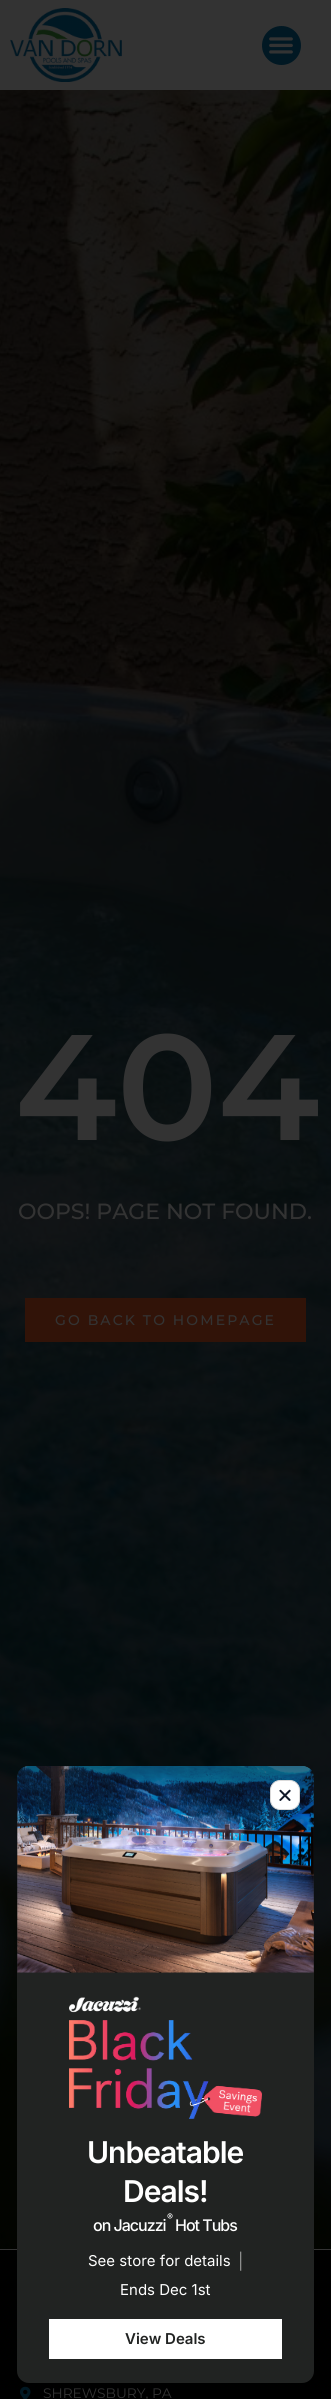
#include <cairo.h>
#include <math.h>
#include <stddef.h>


static void set_color(cairo_t *cr, unsigned color) {
    cairo_set_source_rgb(cr, (color >> 16) / 255.0, (color >> 8 & 255) / 255.0, (color & 255) / 255.0);
}

static void draw_text(cairo_t *cr, double x, double y, const char *s, const char *family, double size, int italic, int bold, unsigned color) {
    cairo_select_font_face(cr, family, italic ? CAIRO_FONT_SLANT_ITALIC : CAIRO_FONT_SLANT_NORMAL,
        bold ? CAIRO_FONT_WEIGHT_BOLD : CAIRO_FONT_WEIGHT_NORMAL);
    cairo_set_font_size(cr, size);
    set_color(cr, color);
    cairo_move_to(cr, x, y);
    cairo_show_text(cr, s);
}

static void draw_spaced(cairo_t *cr, double x, double y, const char *s, double letter, double word) {
    cairo_move_to(cr, x, y);
    while (*s) {
        char ch[5] = {0};
        int n = 0;
        do ch[n++] = *s++; while ((*s & 0xC0) == 0x80);
        cairo_show_text(cr, ch);
        cairo_rel_move_to(cr, letter + word * (*ch == ' '), 0);
    }
}

static void fill_rect(cairo_t *cr, double x, double y, double w, double h, unsigned color) {
    set_color(cr, color);
    cairo_rectangle(cr, x, y, w, h);
    cairo_fill(cr);
}

static void rounded_rect(cairo_t *cr, double x, double y, double w, double h, double r) {
    cairo_new_sub_path(cr);
    cairo_arc(cr, x + w - r, y + h - r, r, 0, M_PI / 2);
    cairo_arc(cr, x + r, y + h - r, r, M_PI / 2, M_PI);
    cairo_arc(cr, x + r, y + r, r, M_PI, 1.5 * M_PI);
    cairo_arc(cr, x + w - r, y + r, r, 1.5 * M_PI, 2 * M_PI);
    cairo_close_path(cr);
}

static void draw_image(cairo_t *cr, const char *path, double x, double y, double w, double h) {
    cairo_surface_t *image = cairo_image_surface_create_from_png(path);
    cairo_save(cr);
    cairo_set_source_surface(cr, image, x, y);
    cairo_rectangle(cr, x, y, w, h);
    cairo_fill(cr);
    cairo_restore(cr);
    cairo_surface_destroy(image);
}

int main(void) {
    cairo_surface_t *surface = cairo_image_surface_create(CAIRO_FORMAT_RGB24, 331, 2399);
    cairo_t *cr = cairo_create(surface);
    cairo_font_options_t *options = cairo_font_options_create();
    cairo_font_options_set_hint_metrics(options, CAIRO_HINT_METRICS_OFF);
    cairo_font_options_set_hint_style(options, CAIRO_HINT_STYLE_NONE);
    cairo_set_font_options(cr, options);
    cairo_set_miter_limit(cr, 4);
    cairo_pattern_t *gradient;
    set_color(cr, 0x333333);
    cairo_paint(cr);
    draw_image(cr, "assets/img1.png", 10, 8, 112, 74);
    set_color(cr, 0x011823);
    cairo_arc(cr, 281.5, 45.5, 19.5, 0, 2 * M_PI);
    cairo_fill(cr);
    draw_image(cr, "assets/img2.png", 269, 37, 24, 17);
    draw_image(cr, "assets/img3.png", 0, 90, 331, 2159);
    draw_text(cr, 15, 1140, "404", "Montserrat SemiBold", 150, 0, 0, 0x333333);
    draw_text(cr, 18, 1219, "OOPS! PAGE NOT FOUND.", "Montserrat Medium", 22, 0, 0, 0x333333);
    fill_rect(cr, 25, 1298, 281, 44, 0x311308);
    cairo_set_font_size(cr, 14);
    set_color(cr, 0x333333);
    draw_spaced(cr, 55, 1325, "GO BACK TO HOMEPAGE", 2.1, 0);
    fill_rect(cr, 0, 2250, 331, 149, 0x000000);
    draw_image(cr, "assets/img4.png", 20, 2386, 11, 13);
    draw_text(cr, 43, 2398, "SHREWSBURY, PA", "Montserrat", 13.75, 0, 0, 0x333333);
    set_color(cr, 0x212322);
    rounded_rect(cr, 17, 1766, 297, 617, 12);
    cairo_fill(cr);
    draw_image(cr, "assets/img6.png", 17, 1766, 297, 207);
    gradient = cairo_pattern_create_linear(166, 1766, 166, 1973);
    cairo_pattern_add_color_stop_rgba(gradient, 0, 0.063, 0.094, 0.157, 0.55);
    cairo_pattern_add_color_stop_rgba(gradient, 0.38, 0.063, 0.094, 0.157, 0);
    cairo_set_source(cr, gradient);
    cairo_pattern_destroy(gradient);
    cairo_new_path(cr);
    cairo_move_to(cr, 29, 1766);
    cairo_line_to(cr, 302, 1766);
    cairo_curve_to(cr, 308.5, 1766, 314, 1771.5, 314, 1778);
    cairo_line_to(cr, 314, 1973);
    cairo_line_to(cr, 17, 1973);
    cairo_line_to(cr, 17, 1778);
    cairo_curve_to(cr, 17, 1771.5, 22.5, 1766, 29, 1766);
    cairo_close_path(cr);
    cairo_fill(cr);
    set_color(cr, 0xFFFFFF);
    rounded_rect(cr, 270.5, 1780.5, 29, 29, 9.5);
    cairo_fill_preserve(cr);
    set_color(cr, 0xDADADA);
    cairo_set_line_width(cr, 1);
    cairo_stroke(cr);
    draw_image(cr, "assets/img5.png", 279, 1789, 12, 12);
    draw_image(cr, "assets/img7.png", 69, 1996, 193, 123);
    cairo_select_font_face(cr, "Inter SemiBold", CAIRO_FONT_SLANT_NORMAL, CAIRO_FONT_WEIGHT_NORMAL);
    cairo_set_font_size(cr, 30);
    set_color(cr, 0xFFFFFF);
    draw_spaced(cr, 87, 2163, "Unbeatable", -1, 0);
    draw_spaced(cr, 123, 2202, "Deals!", -1, 0);
    cairo_select_font_face(cr, "Inter Medium", CAIRO_FONT_SLANT_NORMAL, CAIRO_FONT_WEIGHT_NORMAL);
    cairo_set_font_size(cr, 9);
    draw_spaced(cr, 167, 2220, "®", -1, 0);
    cairo_set_font_size(cr, 16);
    draw_spaced(cr, 93, 2231, "on Jacuzzi", -1, 0);
    draw_spaced(cr, 175, 2231, "Hot Tubs", -1, 0);
    draw_text(cr, 88, 2266, "See store for details", "Inter", 15, 0, 0, 0xFFFFFF);
    draw_text(cr, 238, 2267, "|", "Inter", 16, 0, 0, 0x929292);
    draw_text(cr, 120, 2295, "Ends Dec 1st", "Inter", 15, 0, 0, 0xFFFFFF);
    fill_rect(cr, 49, 2319, 233, 40, 0xFFFFFF);
    draw_text(cr, 125, 2344, "View Deals", "Inter SemiBold", 15, 0, 0, 0x212322);
    cairo_surface_write_to_png(surface, "output.png");
    cairo_font_options_destroy(options);
    cairo_destroy(cr);
    cairo_surface_destroy(surface);
    return 0;
}
